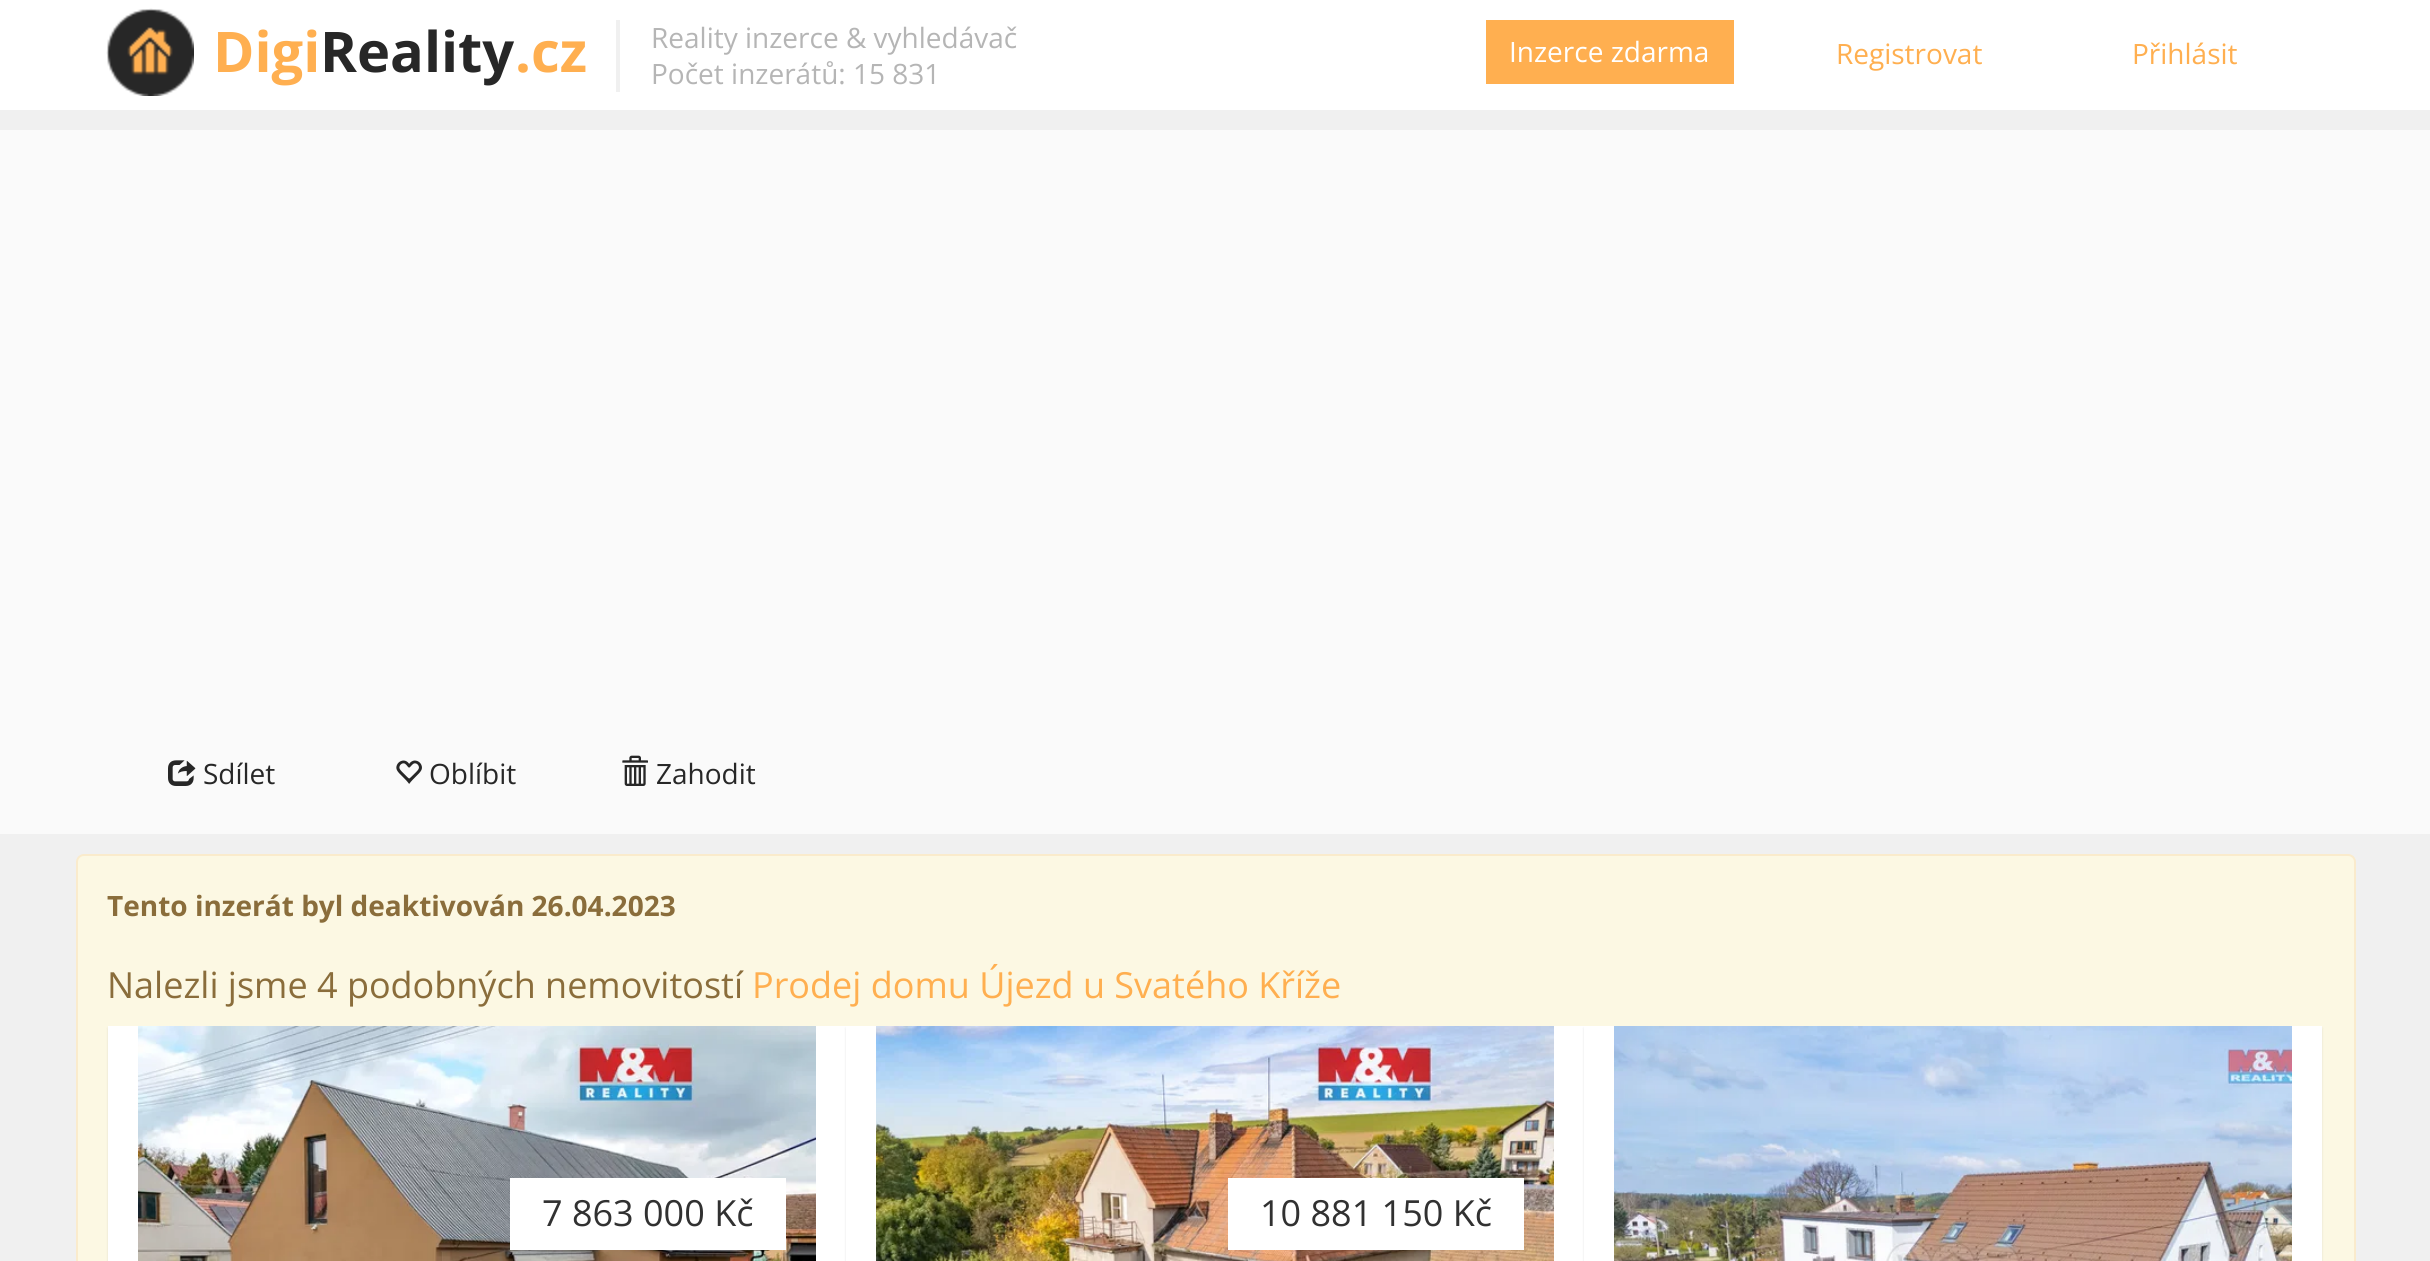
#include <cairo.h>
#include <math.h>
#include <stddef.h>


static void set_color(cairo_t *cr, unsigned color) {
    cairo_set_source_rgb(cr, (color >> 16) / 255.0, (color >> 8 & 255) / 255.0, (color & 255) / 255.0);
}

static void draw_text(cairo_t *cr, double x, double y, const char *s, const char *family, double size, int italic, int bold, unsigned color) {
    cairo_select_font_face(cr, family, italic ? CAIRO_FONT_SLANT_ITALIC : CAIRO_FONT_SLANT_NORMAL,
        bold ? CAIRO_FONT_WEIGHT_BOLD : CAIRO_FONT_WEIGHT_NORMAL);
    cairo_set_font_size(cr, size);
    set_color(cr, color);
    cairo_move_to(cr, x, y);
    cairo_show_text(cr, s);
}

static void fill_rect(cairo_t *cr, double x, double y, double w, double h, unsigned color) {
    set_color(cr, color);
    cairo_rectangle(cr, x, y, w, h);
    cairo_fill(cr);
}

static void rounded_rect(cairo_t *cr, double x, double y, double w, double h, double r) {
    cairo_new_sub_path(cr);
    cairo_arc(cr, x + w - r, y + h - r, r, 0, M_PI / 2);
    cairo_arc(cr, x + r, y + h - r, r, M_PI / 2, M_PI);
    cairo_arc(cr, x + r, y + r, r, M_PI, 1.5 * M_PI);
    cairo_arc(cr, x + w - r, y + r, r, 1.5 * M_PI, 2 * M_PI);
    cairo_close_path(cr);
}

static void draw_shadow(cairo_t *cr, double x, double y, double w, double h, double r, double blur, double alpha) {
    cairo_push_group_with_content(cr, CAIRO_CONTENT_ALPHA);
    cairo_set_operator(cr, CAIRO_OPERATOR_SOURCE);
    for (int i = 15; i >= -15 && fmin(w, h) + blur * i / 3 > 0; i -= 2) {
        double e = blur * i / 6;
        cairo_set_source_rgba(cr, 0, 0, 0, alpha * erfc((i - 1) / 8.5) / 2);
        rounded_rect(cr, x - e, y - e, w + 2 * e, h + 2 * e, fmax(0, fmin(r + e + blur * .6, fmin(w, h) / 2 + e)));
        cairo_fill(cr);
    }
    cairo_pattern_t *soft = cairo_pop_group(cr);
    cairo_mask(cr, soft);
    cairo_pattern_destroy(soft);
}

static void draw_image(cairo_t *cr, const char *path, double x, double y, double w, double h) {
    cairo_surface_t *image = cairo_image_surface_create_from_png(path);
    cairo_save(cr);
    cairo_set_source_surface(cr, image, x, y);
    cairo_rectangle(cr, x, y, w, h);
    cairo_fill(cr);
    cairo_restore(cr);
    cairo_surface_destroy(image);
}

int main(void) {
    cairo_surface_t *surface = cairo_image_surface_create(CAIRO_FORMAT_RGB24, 2430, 1261);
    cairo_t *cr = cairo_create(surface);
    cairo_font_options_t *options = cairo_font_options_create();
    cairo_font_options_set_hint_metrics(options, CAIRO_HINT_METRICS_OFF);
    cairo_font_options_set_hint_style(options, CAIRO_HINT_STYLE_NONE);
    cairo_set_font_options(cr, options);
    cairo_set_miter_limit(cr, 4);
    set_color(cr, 0xF0F0F0);
    cairo_paint(cr);
    fill_rect(cr, 0, 0, 2430, 110, 0xFFFFFF);
    draw_image(cr, "assets/img1.png", 106, 8, 88, 88);
    draw_text(cr, 213, 72, "Digi", "Open Sans", 56, 0, 1, 0xFFAF50);
    draw_text(cr, 320, 72, "Reality", "Open Sans", 56, 0, 1, 0x272727);
    draw_text(cr, 515, 72, ".cz", "Open Sans", 56, 0, 1, 0xFFAF50);
    fill_rect(cr, 616, 20, 4, 72, 0xF0F0F0);
    draw_text(cr, 651, 48, "Reality inzerce & vyhledávač", "Open Sans", 28, 0, 0, 0xB5B5B5);
    draw_text(cr, 651, 84, "Počet inzerátů: 15 831", "Open Sans", 28, 0, 0, 0xB5B5B5);
    fill_rect(cr, 1486, 20, 248, 64, 0xFFAF50);
    draw_text(cr, 1509, 62, "Inzerce zdarma", "Open Sans", 28, 0, 0, 0xFFFFFF);
    draw_text(cr, 1836, 64, "Registrovat", "Open Sans", 28, 0, 0, 0xFFAF50);
    draw_text(cr, 2132, 64, "Přihlásit", "Open Sans", 28, 0, 0, 0xFFAF50);
    fill_rect(cr, 0, 130, 2430, 704, 0xFAFAFA);
    draw_image(cr, "assets/img2.png", 168, 760, 28, 26);
    draw_text(cr, 203, 784, "Sdílet", "Open Sans", 28, 0, 0, 0x272727);
    draw_image(cr, "assets/img3.png", 396, 760, 26, 24);
    draw_text(cr, 429, 784, "Oblíbit", "Open Sans", 28, 0, 0, 0x272727);
    draw_image(cr, "assets/img4.png", 622, 755, 26, 31);
    draw_text(cr, 656, 784, "Zahodit", "Open Sans", 28, 0, 0, 0x272727);
    set_color(cr, 0xFCF8E3);
    rounded_rect(cr, 77, 855, 2278, 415, 7);
    cairo_fill_preserve(cr);
    set_color(cr, 0xFAEBCC);
    cairo_stroke(cr);
    draw_text(cr, 107, 916, "Tento inzerát byl deaktivován 26.04.2023", "Open Sans", 28, 0, 1, 0x8A6D3B);
    draw_text(cr, 107, 998, "Nalezli jsme 4 podobných nemovitostí", "Open Sans", 36, 0, 0, 0x8A6D3B);
    draw_text(cr, 752, 998, "Prodej domu Újezd u Svatého Kříže", "Open Sans", 36, 0, 0, 0xFFAF50);
    set_color(cr, 0x000000);
    draw_shadow(cr, 108, 1028, 738, 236, 0, 1, 0.1);
    fill_rect(cr, 108, 1026, 738, 235, 0xFFFFFF);
    draw_image(cr, "assets/img5.png", 138, 1026, 678, 235);
    fill_rect(cr, 510, 1178, 276, 72, 0xFFFFFF);
    draw_text(cr, 542, 1226, "7 863 000 Kč", "Open Sans", 36, 0, 0, 0x313131);
    set_color(cr, 0x000000);
    draw_shadow(cr, 846, 1028, 738, 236, 0, 1, 0.1);
    fill_rect(cr, 846, 1026, 738, 235, 0xFFFFFF);
    draw_image(cr, "assets/img6.png", 876, 1026, 678, 235);
    fill_rect(cr, 1228, 1178, 296, 72, 0xFFFFFF);
    draw_text(cr, 1260, 1226, "10 881 150 Kč", "Open Sans", 36, 0, 0, 0x313131);
    set_color(cr, 0x000000);
    draw_shadow(cr, 1584, 1028, 738, 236, 0, 1, 0.1);
    fill_rect(cr, 1584, 1026, 738, 235, 0xFFFFFF);
    draw_image(cr, "assets/img7.png", 1614, 1026, 678, 235);
    cairo_surface_write_to_png(surface, "output.png");
    cairo_font_options_destroy(options);
    cairo_destroy(cr);
    cairo_surface_destroy(surface);
    return 0;
}
